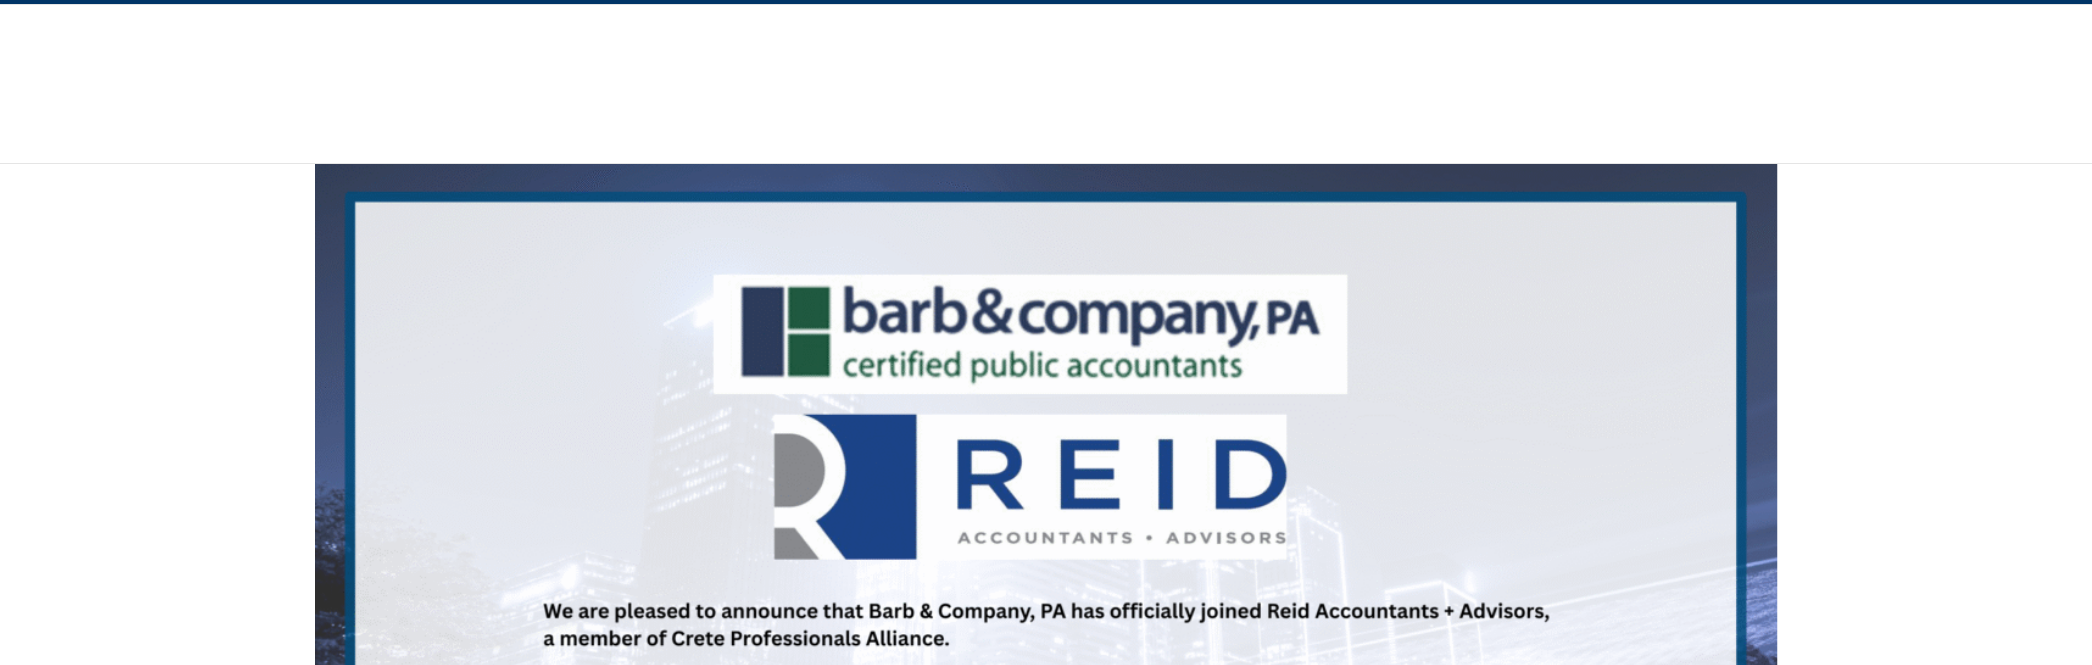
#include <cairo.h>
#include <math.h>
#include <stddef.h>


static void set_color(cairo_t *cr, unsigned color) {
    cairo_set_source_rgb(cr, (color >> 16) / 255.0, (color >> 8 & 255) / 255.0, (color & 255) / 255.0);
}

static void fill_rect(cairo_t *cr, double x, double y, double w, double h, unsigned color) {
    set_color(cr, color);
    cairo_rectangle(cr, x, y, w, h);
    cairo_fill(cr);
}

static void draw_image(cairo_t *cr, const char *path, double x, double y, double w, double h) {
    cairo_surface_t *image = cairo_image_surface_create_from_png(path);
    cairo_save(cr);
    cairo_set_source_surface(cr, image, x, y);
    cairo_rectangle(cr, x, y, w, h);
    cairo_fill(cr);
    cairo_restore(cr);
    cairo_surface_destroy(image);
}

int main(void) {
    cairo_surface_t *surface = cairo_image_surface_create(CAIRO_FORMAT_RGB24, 2092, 665);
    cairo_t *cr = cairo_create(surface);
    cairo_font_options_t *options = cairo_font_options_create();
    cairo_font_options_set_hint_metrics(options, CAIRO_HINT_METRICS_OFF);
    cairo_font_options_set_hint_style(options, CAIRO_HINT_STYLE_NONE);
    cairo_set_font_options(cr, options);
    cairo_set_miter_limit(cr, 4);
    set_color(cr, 0xFFFFFF);
    cairo_paint(cr);
    fill_rect(cr, 0, 0, 2092, 4, 0x013567);
    fill_rect(cr, 0, 4, 2092, 1, 0xE5E5E5);
    fill_rect(cr, 0, 163, 2092, 1, 0xE5E5E5);
    draw_image(cr, "assets/img1.png", 315, 164, 1463, 501);
    cairo_surface_write_to_png(surface, "output.png");
    cairo_font_options_destroy(options);
    cairo_destroy(cr);
    cairo_surface_destroy(surface);
    return 0;
}
